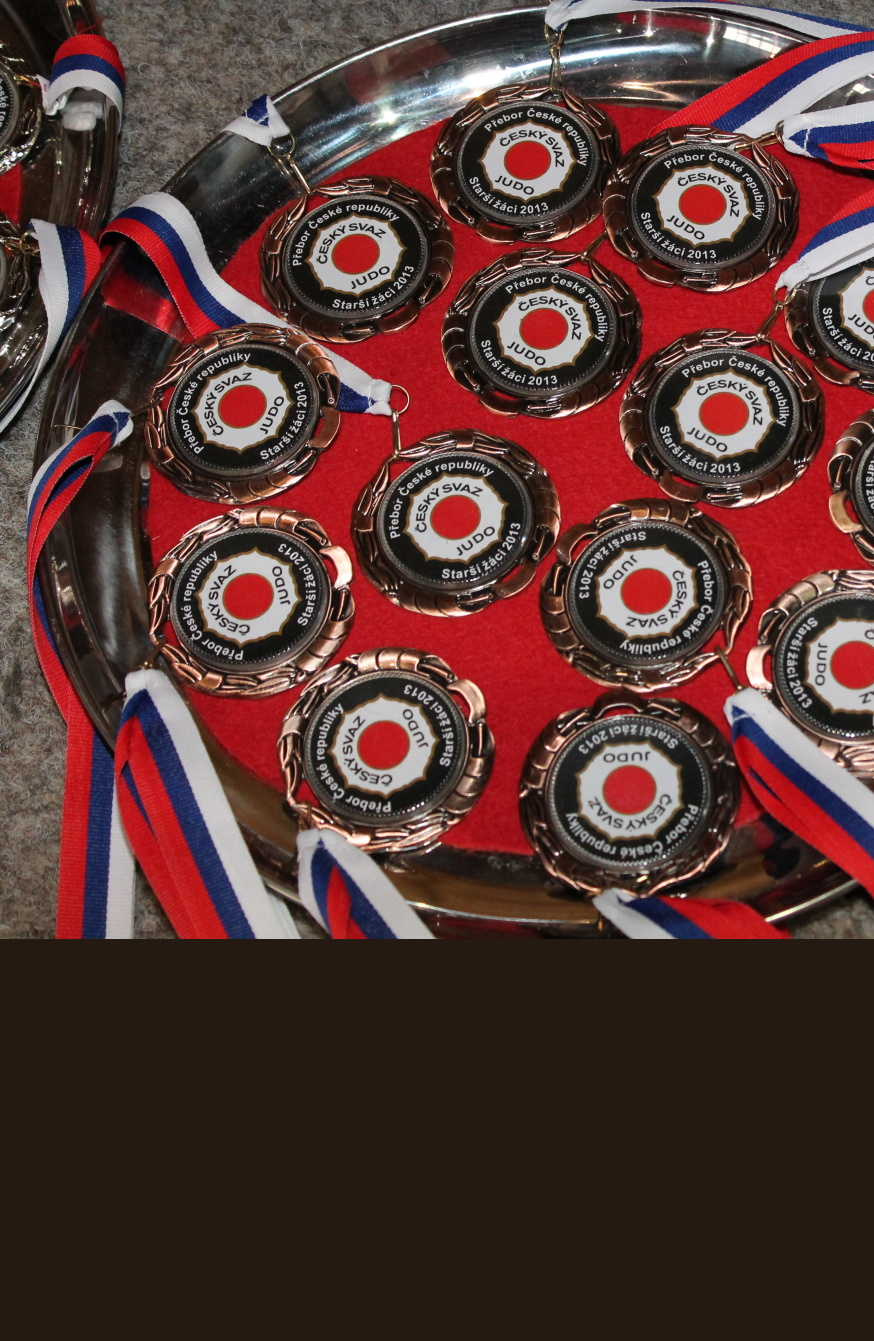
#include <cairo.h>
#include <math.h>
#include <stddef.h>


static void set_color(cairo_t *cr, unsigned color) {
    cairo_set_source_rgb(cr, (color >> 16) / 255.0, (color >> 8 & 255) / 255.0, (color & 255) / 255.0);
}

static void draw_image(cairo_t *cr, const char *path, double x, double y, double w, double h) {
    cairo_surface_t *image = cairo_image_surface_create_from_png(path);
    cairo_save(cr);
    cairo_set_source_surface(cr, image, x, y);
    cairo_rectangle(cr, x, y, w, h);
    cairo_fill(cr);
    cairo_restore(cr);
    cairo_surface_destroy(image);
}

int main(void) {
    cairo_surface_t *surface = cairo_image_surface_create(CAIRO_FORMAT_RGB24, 874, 1341);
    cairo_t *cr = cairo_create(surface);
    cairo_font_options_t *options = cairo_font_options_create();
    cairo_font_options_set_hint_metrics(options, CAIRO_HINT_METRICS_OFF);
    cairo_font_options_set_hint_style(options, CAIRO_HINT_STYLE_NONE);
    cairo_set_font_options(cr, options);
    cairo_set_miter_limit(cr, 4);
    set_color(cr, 0x251A12);
    cairo_paint(cr);
    draw_image(cr, "assets/img1.png", 0, 0, 874, 939);
    cairo_surface_write_to_png(surface, "output.png");
    cairo_font_options_destroy(options);
    cairo_destroy(cr);
    cairo_surface_destroy(surface);
    return 0;
}
